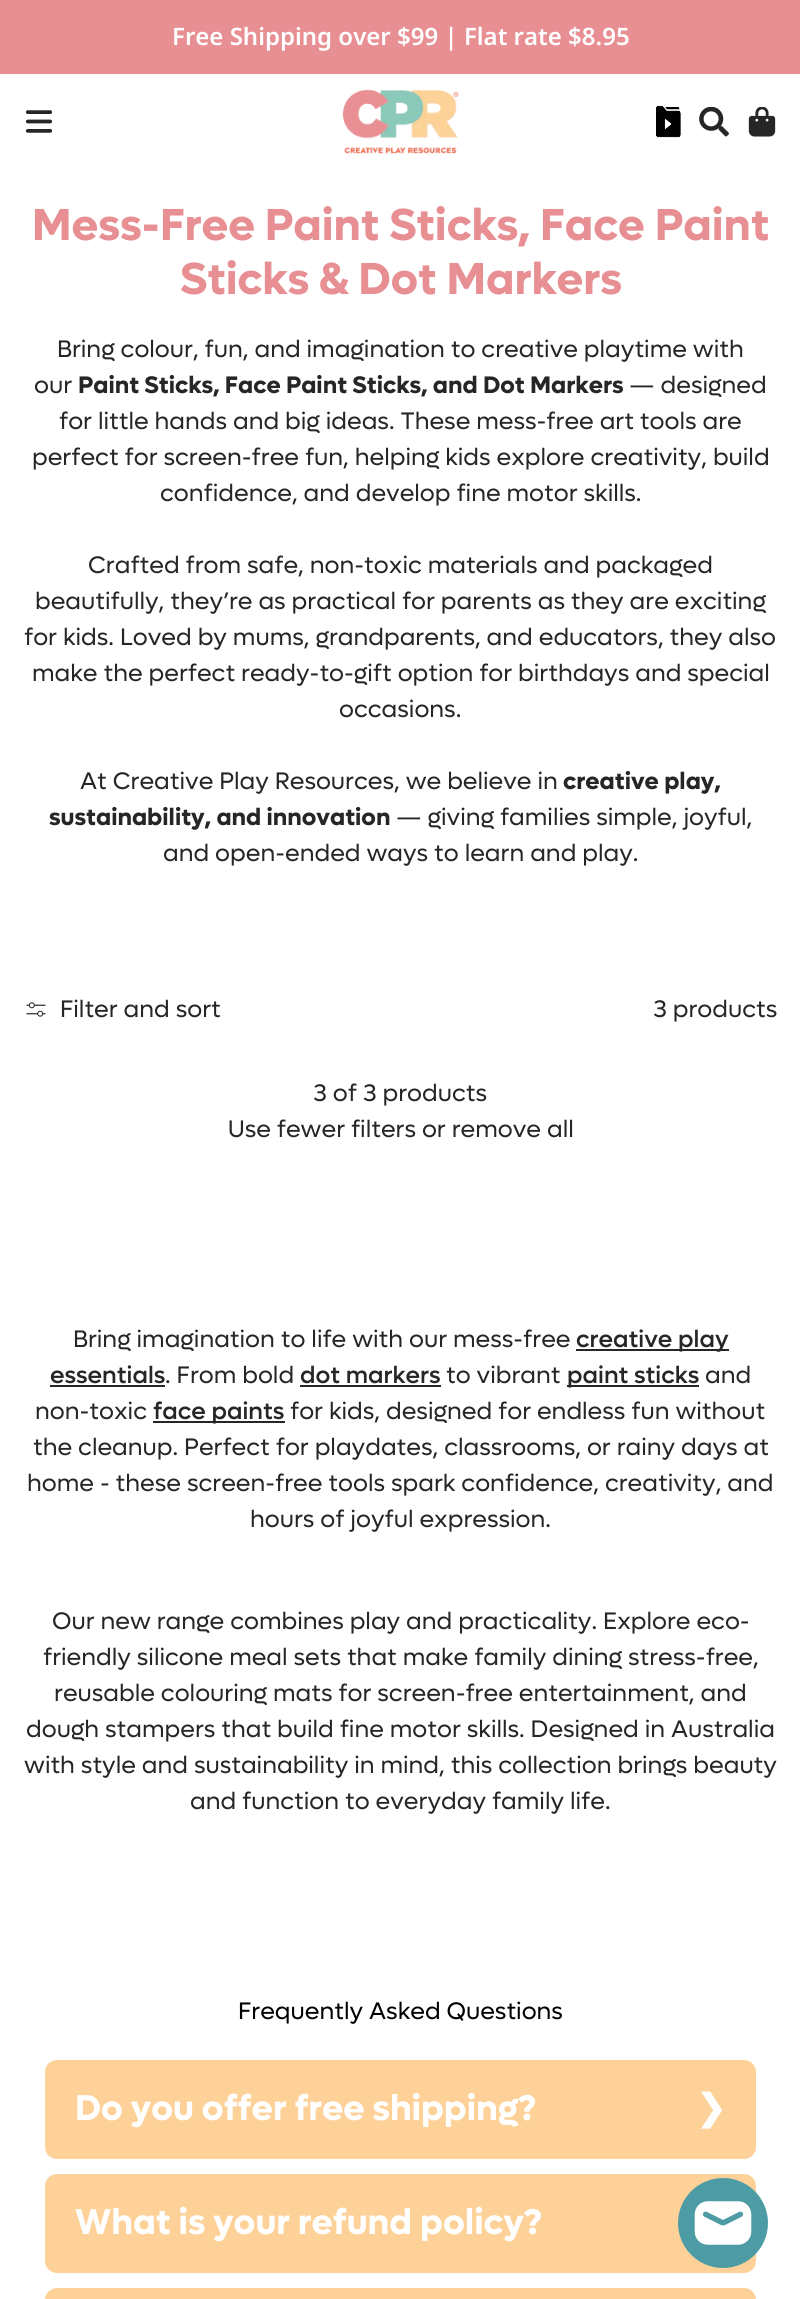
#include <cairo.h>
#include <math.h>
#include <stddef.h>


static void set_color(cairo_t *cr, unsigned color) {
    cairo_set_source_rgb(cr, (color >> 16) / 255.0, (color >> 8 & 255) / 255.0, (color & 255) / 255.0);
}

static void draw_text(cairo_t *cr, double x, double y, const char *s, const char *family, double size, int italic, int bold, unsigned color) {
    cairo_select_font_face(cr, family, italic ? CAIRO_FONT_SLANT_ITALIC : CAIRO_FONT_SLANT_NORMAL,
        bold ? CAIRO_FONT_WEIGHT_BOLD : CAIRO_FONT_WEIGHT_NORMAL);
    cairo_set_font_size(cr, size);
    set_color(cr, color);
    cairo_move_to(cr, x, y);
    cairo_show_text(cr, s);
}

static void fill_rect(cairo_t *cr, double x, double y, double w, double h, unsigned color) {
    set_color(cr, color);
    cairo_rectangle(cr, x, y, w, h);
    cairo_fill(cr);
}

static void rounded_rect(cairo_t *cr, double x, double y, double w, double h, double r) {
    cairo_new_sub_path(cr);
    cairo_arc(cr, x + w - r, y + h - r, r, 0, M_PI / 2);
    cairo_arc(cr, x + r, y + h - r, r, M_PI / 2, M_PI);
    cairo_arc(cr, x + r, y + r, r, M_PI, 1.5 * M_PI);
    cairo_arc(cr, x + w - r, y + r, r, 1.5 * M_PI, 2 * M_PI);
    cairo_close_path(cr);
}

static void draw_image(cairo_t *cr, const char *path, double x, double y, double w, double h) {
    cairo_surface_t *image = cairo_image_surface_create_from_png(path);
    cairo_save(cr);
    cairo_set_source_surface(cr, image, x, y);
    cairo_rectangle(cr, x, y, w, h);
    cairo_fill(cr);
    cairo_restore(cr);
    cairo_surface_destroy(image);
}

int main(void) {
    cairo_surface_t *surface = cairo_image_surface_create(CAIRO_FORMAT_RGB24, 800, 2299);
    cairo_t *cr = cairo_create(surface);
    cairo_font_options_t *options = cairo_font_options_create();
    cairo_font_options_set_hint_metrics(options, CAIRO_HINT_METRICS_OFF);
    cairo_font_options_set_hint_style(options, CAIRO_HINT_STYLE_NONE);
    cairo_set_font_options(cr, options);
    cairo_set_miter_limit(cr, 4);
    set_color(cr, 0xFFFFFF);
    cairo_paint(cr);
    fill_rect(cr, 0, 0, 800, 74, 0xE78F93);
    draw_text(cr, 172, 45, "Free Shipping over $99 | Flat rate $8.95", "Noto Sans SemiBold", 24, 0, 0, 0xFFFFFF);
    draw_image(cr, "assets/img1.png", 25, 110, 28, 23);
    draw_image(cr, "assets/img2.png", 342, 89, 117, 65);
    draw_image(cr, "assets/img3.png", 656, 105, 25, 33);
    draw_image(cr, "assets/img4.png", 699, 107, 30, 30);
    draw_image(cr, "assets/img5.png", 748, 107, 28, 30);
    draw_text(cr, 32, 240, "Mess-Free Paint Sticks, Face Paint", "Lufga", 45, 0, 1, 0xE78F93);
    draw_text(cr, 180, 294, "Sticks & Dot Markers", "Lufga", 45, 0, 1, 0xE78F93);
    draw_text(cr, 57, 357, "Bring colour, fun, and imagination to creative playtime with", "Lufga", 24, 0, 0, 0x262626);
    draw_text(cr, 34, 393, "our", "Lufga", 24, 0, 0, 0x262626);
    draw_text(cr, 78, 393, "Paint Sticks, Face Paint Sticks, and Dot Markers", "Lufga", 24, 0, 1, 0x262626);
    draw_text(cr, 629, 393, "— designed", "Lufga", 24, 0, 0, 0x262626);
    draw_text(cr, 59, 429, "for little hands and big ideas. These mess-free art tools are", "Lufga", 24, 0, 0, 0x262626);
    draw_text(cr, 32, 465, "perfect for screen-free fun, helping kids explore creativity, build", "Lufga", 24, 0, 0, 0x262626);
    draw_text(cr, 160, 501, "confidence, and develop fine motor skills.", "Lufga", 24, 0, 0, 0x262626);
    draw_text(cr, 88, 573, "Crafted from safe, non-toxic materials and packaged", "Lufga", 24, 0, 0, 0x262626);
    draw_text(cr, 35, 609, "beautifully, they’re as practical for parents as they are exciting", "Lufga", 24, 0, 0, 0x262626);
    draw_text(cr, 24, 645, "for kids. Loved by mums, grandparents, and educators, they also", "Lufga", 24, 0, 0, 0x262626);
    draw_text(cr, 32, 681, "make the perfect ready-to-gift option for birthdays and special", "Lufga", 24, 0, 0, 0x262626);
    draw_text(cr, 339, 717, "occasions.", "Lufga", 24, 0, 0, 0x262626);
    draw_text(cr, 80, 789, "At Creative Play Resources, we believe in", "Lufga", 24, 0, 0, 0x262626);
    draw_text(cr, 563, 789, "creative play,", "Lufga", 24, 0, 1, 0x262626);
    draw_text(cr, 49, 825, "sustainability, and innovation", "Lufga", 24, 0, 1, 0x262626);
    draw_text(cr, 396, 825, "— giving families simple, joyful,", "Lufga", 24, 0, 0, 0x262626);
    draw_text(cr, 163, 861, "and open-ended ways to learn and play.", "Lufga", 24, 0, 0, 0x262626);
    draw_image(cr, "assets/img6.png", 26, 1002, 20, 15);
    draw_text(cr, 60, 1017, "Filter and sort", "Lufga", 24, 0, 0, 0x262626);
    draw_text(cr, 653, 1017, "3 products", "Lufga", 24, 0, 0, 0x262626);
    draw_text(cr, 313, 1101, "3 of 3 products", "Lufga", 24, 0, 0, 0x262626);
    draw_text(cr, 228, 1137, "Use fewer filters or remove all", "Lufga", 24, 0, 0, 0x262626);
    draw_text(cr, 73, 1347, "Bring imagination to life with our mess-free", "Lufga", 24, 0, 0, 0x262626);
    fill_rect(cr, 576, 1349, 153, 2, 0x262626);
    draw_text(cr, 576, 1347, "creative play", "Lufga Medium", 24, 0, 0, 0x262626);
    draw_text(cr, 50, 1383, "essentials", "Lufga Medium", 24, 0, 0, 0x262626);
    fill_rect(cr, 50, 1385, 115, 2, 0x262626);
    draw_text(cr, 165, 1383, ". From bold", "Lufga", 24, 0, 0, 0x262626);
    draw_text(cr, 300, 1383, "dot markers", "Lufga Medium", 24, 0, 0, 0x262626);
    fill_rect(cr, 300, 1385, 141, 2, 0x262626);
    draw_text(cr, 446, 1383, "to vibrant", "Lufga", 24, 0, 0, 0x262626);
    fill_rect(cr, 567, 1385, 132, 2, 0x262626);
    draw_text(cr, 567, 1383, "paint sticks", "Lufga Medium", 24, 0, 0, 0x262626);
    draw_text(cr, 705, 1383, "and", "Lufga", 24, 0, 0, 0x262626);
    draw_text(cr, 35, 1419, "non-toxic", "Lufga", 24, 0, 0, 0x262626);
    fill_rect(cr, 153, 1421, 132, 2, 0x262626);
    draw_text(cr, 153, 1419, "face paints", "Lufga Medium", 24, 0, 0, 0x262626);
    draw_text(cr, 290, 1419, "for kids, designed for endless fun without", "Lufga", 24, 0, 0, 0x262626);
    draw_text(cr, 33, 1455, "the cleanup. Perfect for playdates, classrooms, or rainy days at", "Lufga", 24, 0, 0, 0x262626);
    draw_text(cr, 27, 1491, "home - these screen-free tools spark confidence, creativity, and", "Lufga", 24, 0, 0, 0x262626);
    draw_text(cr, 250, 1527, "hours of joyful expression.", "Lufga", 24, 0, 0, 0x262626);
    draw_text(cr, 52, 1629, "Our new range combines play and practicality. Explore eco-", "Lufga", 24, 0, 0, 0x262626);
    draw_text(cr, 43, 1665, "friendly silicone meal sets that make family dining stress-free,", "Lufga", 24, 0, 0, 0x262626);
    draw_text(cr, 54, 1701, "reusable colouring mats for screen-free entertainment, and", "Lufga", 24, 0, 0, 0x262626);
    draw_text(cr, 26, 1737, "dough stampers that build fine motor skills. Designed in Australia", "Lufga", 24, 0, 0, 0x262626);
    draw_text(cr, 24, 1773, "with style and sustainability in mind, this collection brings beauty", "Lufga", 24, 0, 0, 0x262626);
    draw_text(cr, 190, 1809, "and function to everyday family life.", "Lufga", 24, 0, 0, 0x262626);
    draw_text(cr, 238, 2019, "Frequently Asked Questions", "Lufga", 24, 0, 0, 0x000000);
    set_color(cr, 0xFDD198);
    rounded_rect(cr, 45, 2060, 711, 99, 12);
    cairo_fill(cr);
    draw_text(cr, 75, 2120, "Do you offer free shipping?", "Lufga", 36, 0, 1, 0xFFFFFF);
    draw_text(cr, 696, 2120, "❯", "DejaVu Sans", 36, 0, 1, 0xFFFFFF);
    set_color(cr, 0xFDD198);
    rounded_rect(cr, 45, 2174, 711, 99, 12);
    cairo_fill(cr);
    draw_text(cr, 75, 2234, "What is your refund policy?", "Lufga", 36, 0, 1, 0xFFFFFF);
    set_color(cr, 0xFDD198);
    rounded_rect(cr, 45, 2288, 711, 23, 12);
    cairo_fill(cr);
    set_color(cr, 0x4D9CA5);
    cairo_arc(cr, 723, 2223, 45, 0, 2 * M_PI);
    cairo_fill(cr);
    draw_image(cr, "assets/img7.png", 694, 2201, 58, 44);
    cairo_surface_write_to_png(surface, "output.png");
    cairo_font_options_destroy(options);
    cairo_destroy(cr);
    cairo_surface_destroy(surface);
    return 0;
}
